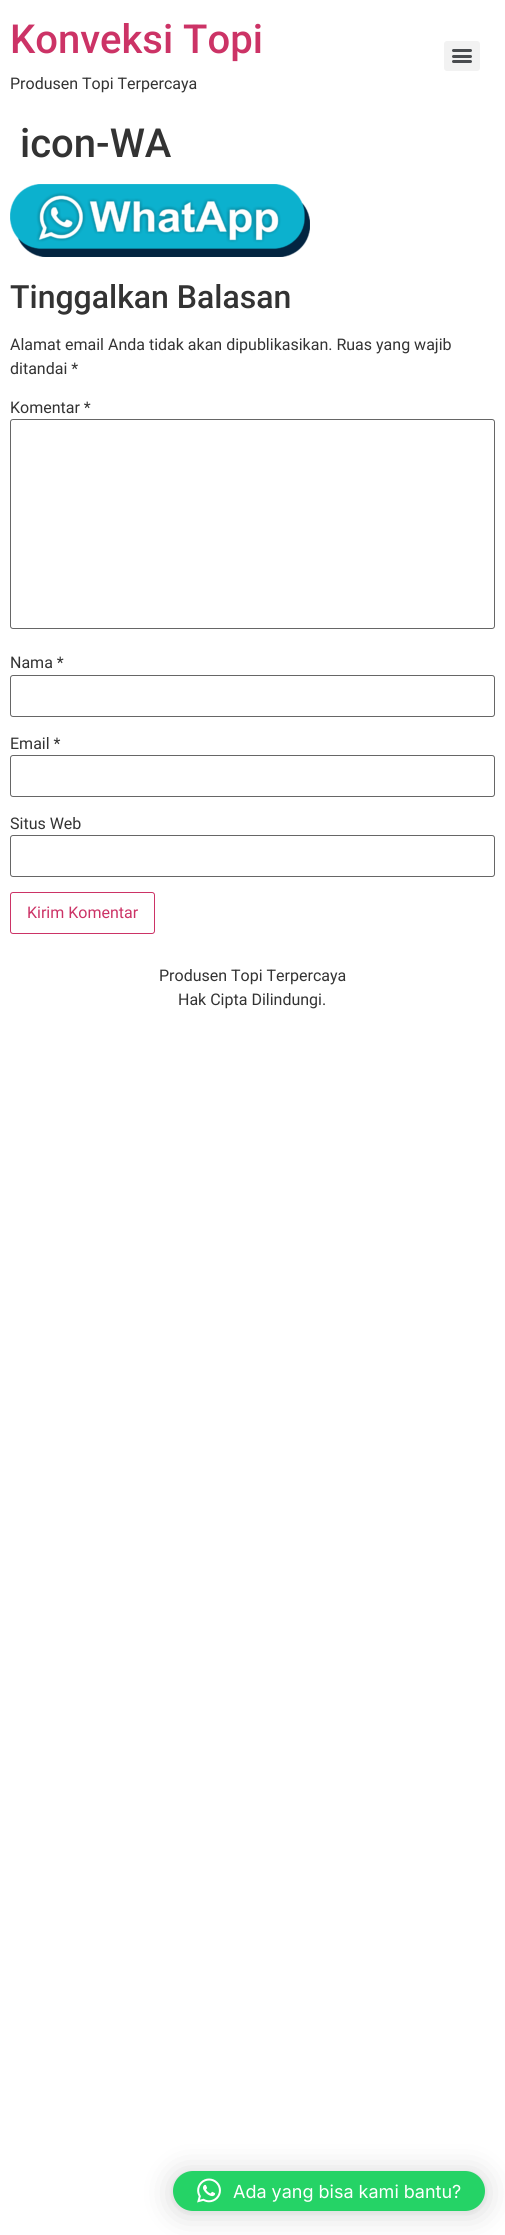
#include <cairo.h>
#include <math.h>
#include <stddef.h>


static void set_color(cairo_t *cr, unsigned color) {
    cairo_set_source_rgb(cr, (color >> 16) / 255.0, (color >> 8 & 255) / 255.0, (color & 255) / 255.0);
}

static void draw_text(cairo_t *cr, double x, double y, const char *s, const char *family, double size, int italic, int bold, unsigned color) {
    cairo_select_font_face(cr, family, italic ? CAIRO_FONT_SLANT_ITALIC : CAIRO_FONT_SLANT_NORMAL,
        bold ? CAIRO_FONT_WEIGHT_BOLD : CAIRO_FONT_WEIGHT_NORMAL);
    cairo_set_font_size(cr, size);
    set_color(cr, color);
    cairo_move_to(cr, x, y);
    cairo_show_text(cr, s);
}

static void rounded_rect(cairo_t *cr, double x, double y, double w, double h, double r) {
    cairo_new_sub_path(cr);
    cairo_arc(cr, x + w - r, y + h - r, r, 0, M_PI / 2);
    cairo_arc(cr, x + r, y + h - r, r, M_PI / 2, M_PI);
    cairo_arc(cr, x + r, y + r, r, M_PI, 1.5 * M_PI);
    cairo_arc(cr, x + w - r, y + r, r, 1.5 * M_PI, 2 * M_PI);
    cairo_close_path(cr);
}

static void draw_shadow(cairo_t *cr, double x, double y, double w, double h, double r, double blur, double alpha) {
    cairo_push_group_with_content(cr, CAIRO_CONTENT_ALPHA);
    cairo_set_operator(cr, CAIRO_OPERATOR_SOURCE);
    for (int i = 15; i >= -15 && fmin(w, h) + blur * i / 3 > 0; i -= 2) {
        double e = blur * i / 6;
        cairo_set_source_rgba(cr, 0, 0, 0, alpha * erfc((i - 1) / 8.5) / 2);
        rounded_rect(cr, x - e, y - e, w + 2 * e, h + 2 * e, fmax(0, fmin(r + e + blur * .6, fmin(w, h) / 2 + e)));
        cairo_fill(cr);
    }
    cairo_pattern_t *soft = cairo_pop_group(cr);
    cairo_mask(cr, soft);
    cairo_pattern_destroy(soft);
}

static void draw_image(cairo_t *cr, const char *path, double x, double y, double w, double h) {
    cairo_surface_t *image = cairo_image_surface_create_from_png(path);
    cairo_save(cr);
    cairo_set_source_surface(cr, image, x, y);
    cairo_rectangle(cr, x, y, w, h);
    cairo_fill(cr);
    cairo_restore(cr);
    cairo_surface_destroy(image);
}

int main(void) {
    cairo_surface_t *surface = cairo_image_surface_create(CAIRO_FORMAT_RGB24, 505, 2235);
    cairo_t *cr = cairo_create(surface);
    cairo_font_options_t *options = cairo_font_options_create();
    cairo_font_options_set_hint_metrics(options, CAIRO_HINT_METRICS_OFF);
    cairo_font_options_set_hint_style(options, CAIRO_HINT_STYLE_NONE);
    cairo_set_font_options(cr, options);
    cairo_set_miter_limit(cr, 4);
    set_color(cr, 0xFFFFFF);
    cairo_paint(cr);
    draw_text(cr, 10, 53, "Konveksi Topi", "Roboto Medium", 40, 0, 0, 0xCC3366);
    draw_text(cr, 10, 89, "Produsen Topi Terpercaya", "Roboto", 16, 0, 0, 0x333333);
    set_color(cr, 0xF2F2F2);
    rounded_rect(cr, 444, 41, 36, 30, 3);
    cairo_fill(cr);
    set_color(cr, 0x494C4F);
    rounded_rect(cr, 452, 55, 20, 3, 1.5);
    cairo_fill(cr);
    rounded_rect(cr, 452, 49, 20, 3, 1.5);
    cairo_fill(cr);
    rounded_rect(cr, 452, 60, 20, 3, 1.5);
    cairo_fill(cr);
    draw_text(cr, 20, 157, "icon-WA", "Roboto Medium", 40, 0, 0, 0x333333);
    draw_image(cr, "assets/img1.png", 10, 184, 300, 73);
    draw_text(cr, 10, 308, "Tinggalkan Balasan", "Roboto Medium", 32, 0, 0, 0x333333);
    draw_text(cr, 10, 350, "Alamat email Anda tidak akan dipublikasikan. Ruas yang wajib", "Roboto", 16, 0, 0, 0x333333);
    draw_text(cr, 10, 374, "ditandai *", "Roboto", 16, 0, 0, 0x333333);
    draw_text(cr, 10, 413, "Komentar *", "Roboto", 16, 0, 0, 0x333333);
    rounded_rect(cr, 10.5, 419.5, 484, 209, 2.5);
    set_color(cr, 0x666666);
    cairo_set_line_width(cr, 1);
    cairo_stroke(cr);
    draw_text(cr, 10, 668, "Nama *", "Roboto", 16, 0, 0, 0x333333);
    rounded_rect(cr, 10.5, 675.5, 484, 41, 2.5);
    set_color(cr, 0x666666);
    cairo_stroke(cr);
    draw_text(cr, 10, 749, "Email *", "Roboto", 16, 0, 0, 0x333333);
    rounded_rect(cr, 10.5, 755.5, 484, 41, 2.5);
    set_color(cr, 0x666666);
    cairo_stroke(cr);
    draw_text(cr, 10, 829, "Situs Web", "Roboto", 16, 0, 0, 0x333333);
    rounded_rect(cr, 10.5, 835.5, 484, 41, 2.5);
    set_color(cr, 0x666666);
    cairo_stroke(cr);
    rounded_rect(cr, 10.5, 892.5, 144, 41, 2.5);
    set_color(cr, 0xCC3366);
    cairo_stroke(cr);
    draw_text(cr, 27, 918, "Kirim Komentar", "Roboto", 16, 0, 0, 0xCC3366);
    draw_text(cr, 159, 981, "Produsen Topi Terpercaya", "Roboto", 16, 0, 0, 0x333333);
    draw_text(cr, 178, 1005, "Hak Cipta Dilindungi.", "Roboto", 16, 0, 0, 0x333333);
    set_color(cr, 0x000000);
    draw_shadow(cr, 173, 2173, 312, 40, 20, 16, 0.16);
    draw_shadow(cr, 173, 2172, 312, 40, 20, 3, 0.06);
    set_color(cr, 0x25D366);
    rounded_rect(cr, 173, 2171, 312, 40, 20);
    cairo_fill(cr);
    draw_image(cr, "assets/img2.png", 197, 2178, 24, 25);
    draw_text(cr, 233, 2198, "Ada yang bisa kami bantu?", "Inter", 18, 0, 0, 0xFFFFFF);
    cairo_surface_write_to_png(surface, "output.png");
    cairo_font_options_destroy(options);
    cairo_destroy(cr);
    cairo_surface_destroy(surface);
    return 0;
}
